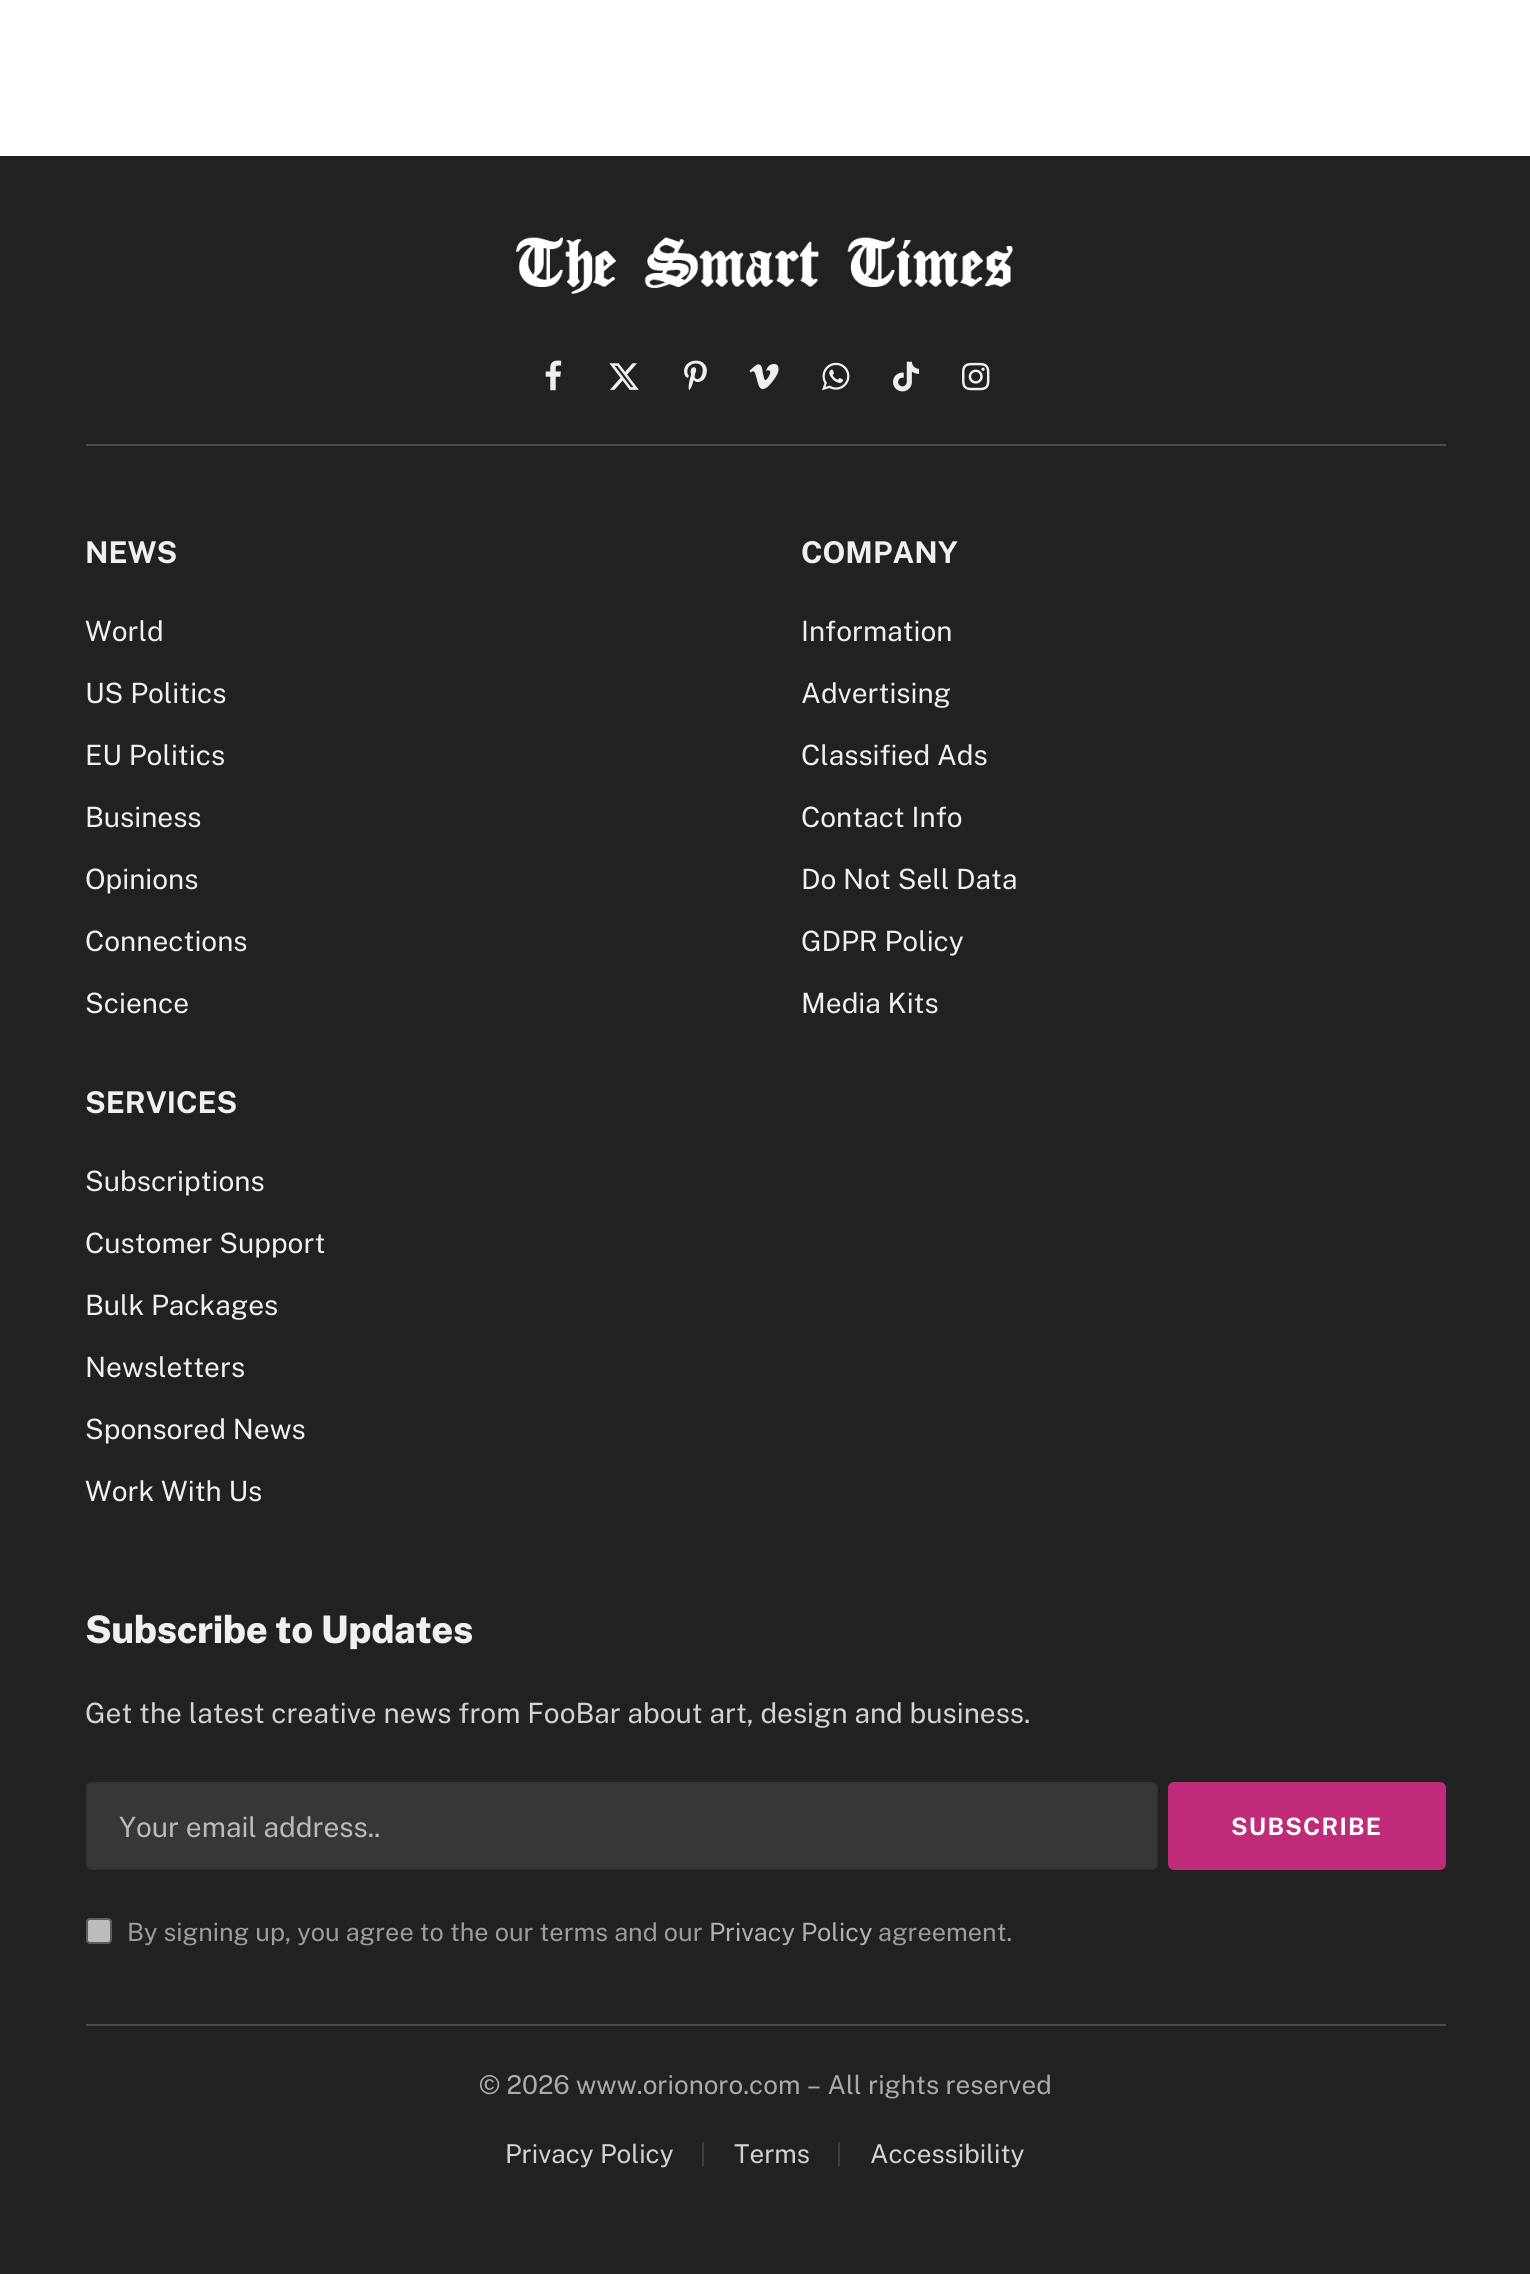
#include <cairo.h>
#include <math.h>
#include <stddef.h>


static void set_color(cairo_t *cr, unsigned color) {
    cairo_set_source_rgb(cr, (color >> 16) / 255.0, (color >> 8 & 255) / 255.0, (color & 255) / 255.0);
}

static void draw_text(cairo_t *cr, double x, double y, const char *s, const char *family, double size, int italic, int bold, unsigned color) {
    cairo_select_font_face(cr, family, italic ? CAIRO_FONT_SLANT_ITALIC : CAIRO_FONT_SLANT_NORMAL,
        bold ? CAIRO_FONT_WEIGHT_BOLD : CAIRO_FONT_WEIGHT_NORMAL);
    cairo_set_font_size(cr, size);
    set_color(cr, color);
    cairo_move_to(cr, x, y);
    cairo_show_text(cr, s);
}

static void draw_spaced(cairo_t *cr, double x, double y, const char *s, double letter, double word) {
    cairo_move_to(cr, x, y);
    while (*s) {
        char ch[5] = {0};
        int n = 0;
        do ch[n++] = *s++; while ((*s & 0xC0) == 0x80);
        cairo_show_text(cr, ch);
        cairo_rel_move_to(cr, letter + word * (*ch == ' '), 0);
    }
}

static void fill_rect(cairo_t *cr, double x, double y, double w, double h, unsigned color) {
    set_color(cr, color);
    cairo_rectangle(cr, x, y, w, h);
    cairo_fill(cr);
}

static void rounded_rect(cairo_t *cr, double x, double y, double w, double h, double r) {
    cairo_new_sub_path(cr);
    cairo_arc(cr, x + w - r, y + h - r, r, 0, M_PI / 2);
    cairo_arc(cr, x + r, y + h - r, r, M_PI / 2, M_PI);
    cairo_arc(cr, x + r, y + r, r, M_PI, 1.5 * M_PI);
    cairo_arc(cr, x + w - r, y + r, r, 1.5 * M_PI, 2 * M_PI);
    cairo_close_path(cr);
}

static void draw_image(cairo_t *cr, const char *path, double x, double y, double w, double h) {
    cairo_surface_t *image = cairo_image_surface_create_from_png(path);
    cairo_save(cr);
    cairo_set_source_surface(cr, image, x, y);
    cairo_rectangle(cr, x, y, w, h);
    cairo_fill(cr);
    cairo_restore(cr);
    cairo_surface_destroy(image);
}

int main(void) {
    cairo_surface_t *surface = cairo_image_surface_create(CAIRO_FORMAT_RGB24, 1530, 2274);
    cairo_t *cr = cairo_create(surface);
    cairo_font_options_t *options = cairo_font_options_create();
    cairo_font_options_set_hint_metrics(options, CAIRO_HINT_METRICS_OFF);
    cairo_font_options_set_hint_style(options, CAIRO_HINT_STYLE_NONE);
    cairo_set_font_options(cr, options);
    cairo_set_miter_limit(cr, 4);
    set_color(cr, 0xFFFFFF);
    cairo_paint(cr);
    fill_rect(cr, 0, 156, 1530, 2118, 0x212121);
    draw_image(cr, "assets/img1.png", 516, 237, 497, 57);
    draw_image(cr, "assets/img2.png", 545, 360, 17, 31);
    draw_image(cr, "assets/img3.png", 609, 363, 30, 27);
    draw_image(cr, "assets/img4.png", 684, 360, 23, 31);
    draw_image(cr, "assets/img5.png", 749, 364, 30, 26);
    draw_image(cr, "assets/img6.png", 822, 362, 28, 29);
    draw_image(cr, "assets/img7.png", 893, 361, 26, 31);
    draw_image(cr, "assets/img8.png", 962, 362, 28, 29);
    fill_rect(cr, 86, 444, 1360, 2, 0x4B4B4B);
    draw_text(cr, 85, 563, "NEWS", "Public Sans", 30, 0, 1, 0xF0F0F0);
    draw_text(cr, 85, 641, "World", "Public Sans", 28, 0, 0, 0xF0F0F0);
    draw_text(cr, 85, 703, "US Politics", "Public Sans", 28, 0, 0, 0xF0F0F0);
    draw_text(cr, 85, 765, "EU Politics", "Public Sans", 28, 0, 0, 0xF0F0F0);
    draw_text(cr, 85, 827, "Business", "Public Sans", 28, 0, 0, 0xF0F0F0);
    draw_text(cr, 85, 889, "Opinions", "Public Sans", 28, 0, 0, 0xF0F0F0);
    draw_text(cr, 85, 951, "Connections", "Public Sans", 28, 0, 0, 0xF0F0F0);
    draw_text(cr, 85, 1013, "Science", "Public Sans", 28, 0, 0, 0xF0F0F0);
    draw_text(cr, 801, 563, "COMPANY", "Public Sans", 30, 0, 1, 0xF0F0F0);
    draw_text(cr, 801, 641, "Information", "Public Sans", 28, 0, 0, 0xF0F0F0);
    draw_text(cr, 801, 703, "Advertising", "Public Sans", 28, 0, 0, 0xF0F0F0);
    draw_text(cr, 801, 765, "Classified Ads", "Public Sans", 28, 0, 0, 0xF0F0F0);
    draw_text(cr, 801, 827, "Contact Info", "Public Sans", 28, 0, 0, 0xF0F0F0);
    draw_text(cr, 801, 889, "Do Not Sell Data", "Public Sans", 28, 0, 0, 0xF0F0F0);
    draw_text(cr, 801, 951, "GDPR Policy", "Public Sans", 28, 0, 0, 0xF0F0F0);
    draw_text(cr, 801, 1013, "Media Kits", "Public Sans", 28, 0, 0, 0xF0F0F0);
    draw_text(cr, 85, 1113, "SERVICES", "Public Sans", 30, 0, 1, 0xF0F0F0);
    draw_text(cr, 85, 1191, "Subscriptions", "Public Sans", 28, 0, 0, 0xF0F0F0);
    draw_text(cr, 85, 1253, "Customer Support", "Public Sans", 28, 0, 0, 0xF0F0F0);
    draw_text(cr, 85, 1315, "Bulk Packages", "Public Sans", 28, 0, 0, 0xF0F0F0);
    draw_text(cr, 85, 1377, "Newsletters", "Public Sans", 28, 0, 0, 0xF0F0F0);
    draw_text(cr, 85, 1439, "Sponsored News", "Public Sans", 28, 0, 0, 0xF0F0F0);
    draw_text(cr, 85, 1501, "Work With Us", "Public Sans", 28, 0, 0, 0xF0F0F0);
    cairo_select_font_face(cr, "Public Sans ExtraBold", CAIRO_FONT_SLANT_NORMAL, CAIRO_FONT_WEIGHT_NORMAL);
    cairo_set_font_size(cr, 38);
    draw_spaced(cr, 85, 1643, "Subscribe to Updates", -0.4, 0);
    draw_text(cr, 85, 1723, "Get the latest creative news from FooBar about art, design and business.", "Public Sans", 28, 0, 0, 0xD3D3D3);
    set_color(cr, 0x373737);
    rounded_rect(cr, 87, 1783, 1070, 86, 5);
    cairo_fill_preserve(cr);
    set_color(cr, 0x333333);
    cairo_stroke(cr);
    draw_text(cr, 119, 1837, "Your email address..", "Public Sans", 28, 0, 0, 0xBBBBBB);
    set_color(cr, 0xBF2B78);
    rounded_rect(cr, 1168, 1782, 278, 88, 6);
    cairo_fill(cr);
    cairo_select_font_face(cr, "Public Sans", CAIRO_FONT_SLANT_NORMAL, CAIRO_FONT_WEIGHT_BOLD);
    cairo_set_font_size(cr, 24);
    set_color(cr, 0xFFFFFF);
    draw_spaced(cr, 1231, 1835, "SUBSCRIBE", 1.25, 0);
    set_color(cr, 0xBCBCBC);
    rounded_rect(cr, 87, 1919, 24, 24, 3);
    cairo_fill_preserve(cr);
    set_color(cr, 0x5D5D5D);
    cairo_stroke(cr);
    draw_text(cr, 127, 1941, "By signing up, you agree to the our terms and our", "Public Sans", 25.2, 0, 0, 0x9D9D9D);
    draw_text(cr, 709, 1941, "Privacy Policy", "Public Sans", 25.2, 0, 0, 0xB2B2B2);
    draw_text(cr, 878, 1941, "agreement.", "Public Sans", 25.2, 0, 0, 0x9D9D9D);
    fill_rect(cr, 86, 2024, 1360, 2, 0x4B4B4B);
    draw_text(cr, 479, 2094, "© 2026 www.orionoro.com – All rights reserved", "Public Sans", 26, 0, 0, 0xABABAB);
    draw_text(cr, 505, 2163, "Privacy Policy", "Public Sans", 26, 0, 0, 0xD3D3D3);
    fill_rect(cr, 702, 2142, 2, 24, 0x3E3E3E);
    draw_text(cr, 734, 2163, "Terms", "Public Sans", 26, 0, 0, 0xD3D3D3);
    fill_rect(cr, 838, 2142, 2, 24, 0x3E3E3E);
    draw_text(cr, 870, 2163, "Accessibility", "Public Sans", 26, 0, 0, 0xD3D3D3);
    cairo_surface_write_to_png(surface, "output.png");
    cairo_font_options_destroy(options);
    cairo_destroy(cr);
    cairo_surface_destroy(surface);
    return 0;
}
